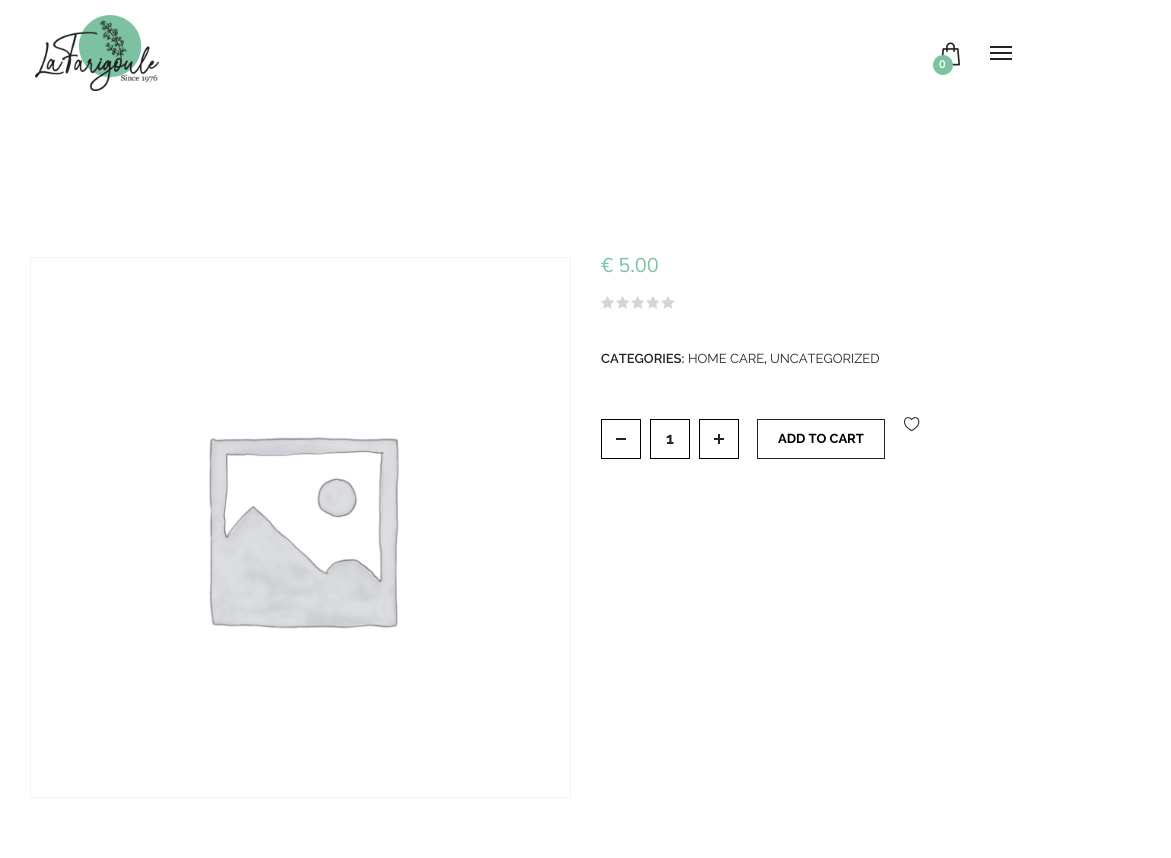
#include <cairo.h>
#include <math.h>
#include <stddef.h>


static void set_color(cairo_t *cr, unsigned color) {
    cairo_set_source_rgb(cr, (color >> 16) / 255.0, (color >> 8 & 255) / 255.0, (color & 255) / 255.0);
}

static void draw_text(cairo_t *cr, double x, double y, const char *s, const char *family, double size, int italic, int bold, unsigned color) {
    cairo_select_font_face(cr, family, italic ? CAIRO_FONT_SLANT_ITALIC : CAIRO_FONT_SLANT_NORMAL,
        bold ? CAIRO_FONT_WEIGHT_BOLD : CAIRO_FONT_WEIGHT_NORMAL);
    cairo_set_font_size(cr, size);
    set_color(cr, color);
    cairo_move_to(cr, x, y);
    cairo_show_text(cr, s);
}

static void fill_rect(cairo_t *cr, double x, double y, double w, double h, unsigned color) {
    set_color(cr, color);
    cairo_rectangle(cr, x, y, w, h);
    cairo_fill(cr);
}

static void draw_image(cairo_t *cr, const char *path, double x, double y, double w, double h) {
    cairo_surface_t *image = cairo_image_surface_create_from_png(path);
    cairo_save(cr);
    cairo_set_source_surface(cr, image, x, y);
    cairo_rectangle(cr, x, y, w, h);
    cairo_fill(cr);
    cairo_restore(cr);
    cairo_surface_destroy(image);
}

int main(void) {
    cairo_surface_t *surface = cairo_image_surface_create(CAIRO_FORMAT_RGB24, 1171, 858);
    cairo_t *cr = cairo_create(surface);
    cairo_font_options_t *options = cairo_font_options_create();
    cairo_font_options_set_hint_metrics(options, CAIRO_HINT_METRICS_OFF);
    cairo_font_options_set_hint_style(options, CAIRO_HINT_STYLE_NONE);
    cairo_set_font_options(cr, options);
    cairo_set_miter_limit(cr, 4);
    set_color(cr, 0xFFFFFF);
    cairo_paint(cr);
    draw_image(cr, "assets/img1.png", 35, 15, 124, 76);
    fill_rect(cr, 990, 46, 22, 2, 0x232323);
    fill_rect(cr, 990, 52, 22, 2, 0x232323);
    fill_rect(cr, 990, 58, 22, 2, 0x232323);
    draw_image(cr, "assets/img2.png", 941, 42, 19, 24);
    set_color(cr, 0x7CC3A2);
    cairo_arc(cr, 943, 65, 10, 0, 2 * M_PI);
    cairo_fill(cr);
    draw_text(cr, 939, 68, "0", "Nunito Sans", 11, 0, 1, 0xFFFFFF);
    cairo_rectangle(cr, 30.5, 257.5, 540, 540);
    set_color(cr, 0xF2F2F2);
    cairo_set_line_width(cr, 1);
    cairo_stroke(cr);
    draw_image(cr, "assets/img3.png", 209, 437, 190, 192);
    draw_text(cr, 601, 272, "€ 5.00", "Nunito Sans", 20, 0, 0, 0x7CC3A2);
    draw_image(cr, "assets/img4.png", 601, 296, 74, 13);
    draw_text(cr, 601, 363, "CATEGORIES:", "Raleway SemiBold", 13, 0, 0, 0x232323);
    draw_text(cr, 688, 363, "HOME CARE", "Raleway", 13, 0, 0, 0x232323);
    draw_text(cr, 764, 363, ",", "Raleway SemiBold", 13, 0, 0, 0x232323);
    draw_text(cr, 770, 363, "UNCATEGORIZED", "Raleway", 13, 0, 0, 0x232323);
    draw_image(cr, "assets/img5.png", 904, 417, 16, 15);
    cairo_rectangle(cr, 601.5, 419.5, 39, 39);
    set_color(cr, 0x000000);
    cairo_stroke(cr);
    fill_rect(cr, 616, 438, 10, 2, 0x232323);
    cairo_rectangle(cr, 650.5, 419.5, 39, 39);
    set_color(cr, 0x000000);
    cairo_stroke(cr);
    draw_text(cr, 666, 444, "1", "Raleway", 16, 0, 1, 0x232323);
    cairo_rectangle(cr, 699.5, 419.5, 39, 39);
    set_color(cr, 0x000000);
    cairo_stroke(cr);
    fill_rect(cr, 714, 438, 10, 2, 0x232323);
    fill_rect(cr, 718, 434, 2, 10, 0x232323);
    cairo_rectangle(cr, 757.5, 419.5, 127, 39);
    cairo_stroke(cr);
    draw_text(cr, 778, 443, "ADD TO CART", "Raleway", 13, 0, 1, 0x000000);
    cairo_surface_write_to_png(surface, "output.png");
    cairo_font_options_destroy(options);
    cairo_destroy(cr);
    cairo_surface_destroy(surface);
    return 0;
}
